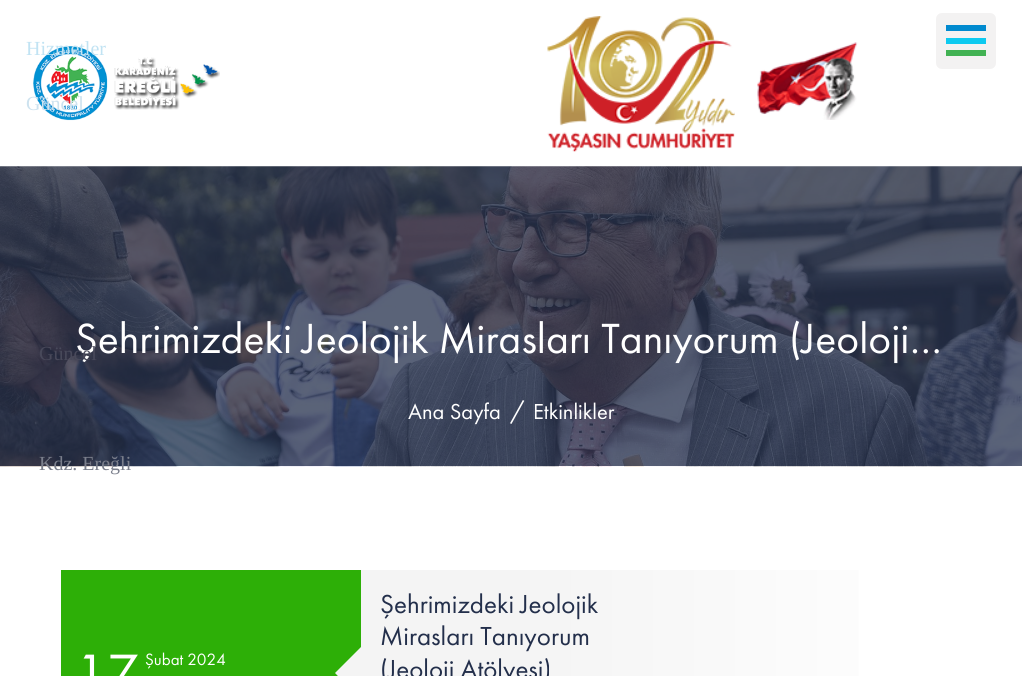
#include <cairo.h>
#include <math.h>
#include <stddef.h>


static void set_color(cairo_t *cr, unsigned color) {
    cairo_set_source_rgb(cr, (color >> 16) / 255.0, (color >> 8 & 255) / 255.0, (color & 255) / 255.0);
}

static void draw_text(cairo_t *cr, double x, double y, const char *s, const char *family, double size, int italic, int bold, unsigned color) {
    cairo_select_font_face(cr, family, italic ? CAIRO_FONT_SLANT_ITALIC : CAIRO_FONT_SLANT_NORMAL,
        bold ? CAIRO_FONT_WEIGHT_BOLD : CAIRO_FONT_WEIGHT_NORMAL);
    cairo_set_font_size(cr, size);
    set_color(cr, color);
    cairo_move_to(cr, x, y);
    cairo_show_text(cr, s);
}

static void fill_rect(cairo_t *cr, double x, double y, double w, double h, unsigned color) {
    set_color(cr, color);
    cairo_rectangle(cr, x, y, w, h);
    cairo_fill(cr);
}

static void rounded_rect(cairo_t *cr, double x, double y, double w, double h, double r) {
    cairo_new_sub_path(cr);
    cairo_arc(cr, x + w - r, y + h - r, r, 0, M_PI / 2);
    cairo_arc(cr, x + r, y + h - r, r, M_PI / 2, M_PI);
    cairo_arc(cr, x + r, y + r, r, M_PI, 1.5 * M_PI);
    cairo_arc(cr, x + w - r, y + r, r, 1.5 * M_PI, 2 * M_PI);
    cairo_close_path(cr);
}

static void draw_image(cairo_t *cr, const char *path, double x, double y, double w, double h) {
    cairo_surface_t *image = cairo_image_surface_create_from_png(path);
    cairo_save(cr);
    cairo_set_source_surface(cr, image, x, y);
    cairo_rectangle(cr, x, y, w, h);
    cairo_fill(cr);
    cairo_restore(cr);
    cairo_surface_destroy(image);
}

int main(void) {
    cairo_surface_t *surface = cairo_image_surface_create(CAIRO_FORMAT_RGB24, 1022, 676);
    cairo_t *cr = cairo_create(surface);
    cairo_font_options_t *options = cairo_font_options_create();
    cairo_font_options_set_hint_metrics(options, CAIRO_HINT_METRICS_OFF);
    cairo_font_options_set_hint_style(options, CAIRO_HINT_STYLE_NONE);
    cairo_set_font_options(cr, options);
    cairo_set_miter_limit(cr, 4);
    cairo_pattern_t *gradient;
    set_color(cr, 0xFFFFFF);
    cairo_paint(cr);
    draw_image(cr, "assets/img1.png", 33, 46, 187, 75);
    draw_text(cr, 26, 55, "Hizmetler", "Liberation Serif", 20, 0, 0, 0xC1E3F3);
    draw_text(cr, 26, 110, "Güncel", "Liberation Serif", 20, 0, 0, 0xCDE2EF);
    draw_image(cr, "assets/img2.png", 547, 16, 188, 136);
    draw_image(cr, "assets/img3.png", 757, 42, 101, 78);
    set_color(cr, 0xF3F2F2);
    rounded_rect(cr, 936, 13, 60, 56, 6);
    cairo_fill(cr);
    fill_rect(cr, 946, 50, 40, 6, 0x42B253);
    fill_rect(cr, 946, 38, 40, 6, 0x0DCAF0);
    fill_rect(cr, 946, 25, 40, 6, 0x008ACF);
    draw_image(cr, "assets/img4.png", 0, 166, 1022, 301);
    draw_text(cr, 75, 353, "Şehrimizdeki Jeolojik Mirasları Tanıyorum (Jeoloji…", "Futura PT", 43.75, 0, 0, 0xFFFFFF);
    draw_text(cr, 39, 360, "Güncel", "Liberation Serif", 20, 0, 0, 0x48495A);
    draw_text(cr, 39, 470, "Kdz. Ereğli", "Liberation Serif", 20, 0, 0, 0x7B7F8C);
    draw_text(cr, 408, 419, "Ana Sayfa", "Futura PT", 22.5, 0, 0, 0xFFFFFF);
    draw_text(cr, 510, 419, "/", "Futura PT", 25, 0, 0, 0xFFFFFF);
    draw_text(cr, 533, 419, "Etkinlikler", "Futura PT", 22.5, 0, 0, 0xFFFFFF);
    gradient = cairo_pattern_create_linear(61, 674, 961, 674);
    cairo_pattern_add_color_stop_rgba(gradient, 0.5, 0.957, 0.957, 0.957, 1);
    cairo_pattern_add_color_stop_rgba(gradient, 1, 1, 1, 1, 1);
    cairo_set_source(cr, gradient);
    cairo_pattern_destroy(gradient);
    cairo_rectangle(cr, 512, 570, 347, 106);
    cairo_fill(cr);
    fill_rect(cr, 61, 570, 300, 106, 0x2DAF07);
    draw_text(cr, 75, 692, "17", "Futura PT", 56, 0, 0, 0xFFFFFF);
    draw_text(cr, 145, 665, "Şubat 2024", "Futura PT", 17, 0, 0, 0xFFFFFF);
    gradient = cairo_pattern_create_linear(361, 674, 661, 674);
    cairo_pattern_add_color_stop_rgba(gradient, 0.5, 0.957, 0.957, 0.957, 1);
    cairo_pattern_add_color_stop_rgba(gradient, 1, 0.957, 0.957, 0.957, 0);
    cairo_set_source(cr, gradient);
    cairo_pattern_destroy(gradient);
    cairo_rectangle(cr, 361, 570, 151, 106);
    cairo_fill(cr);
    set_color(cr, 0xF4F4F4);
    cairo_new_path(cr);
    cairo_move_to(cr, 361, 647);
    cairo_line_to(cr, 388, 673);
    cairo_line_to(cr, 361, 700);
    cairo_line_to(cr, 335, 673);
    cairo_close_path(cr);
    cairo_fill(cr);
    draw_text(cr, 380, 613, "Şehrimizdeki Jeolojik", "Futura PT", 27, 0, 0, 0x232F4B);
    draw_text(cr, 380, 645, "Mirasları Tanıyorum", "Futura PT", 27, 0, 0, 0x232F4B);
    draw_text(cr, 380, 678, "(Jeoloji Atölyesi)", "Futura PT", 27, 0, 0, 0x232F4B);
    cairo_surface_write_to_png(surface, "output.png");
    cairo_font_options_destroy(options);
    cairo_destroy(cr);
    cairo_surface_destroy(surface);
    return 0;
}
